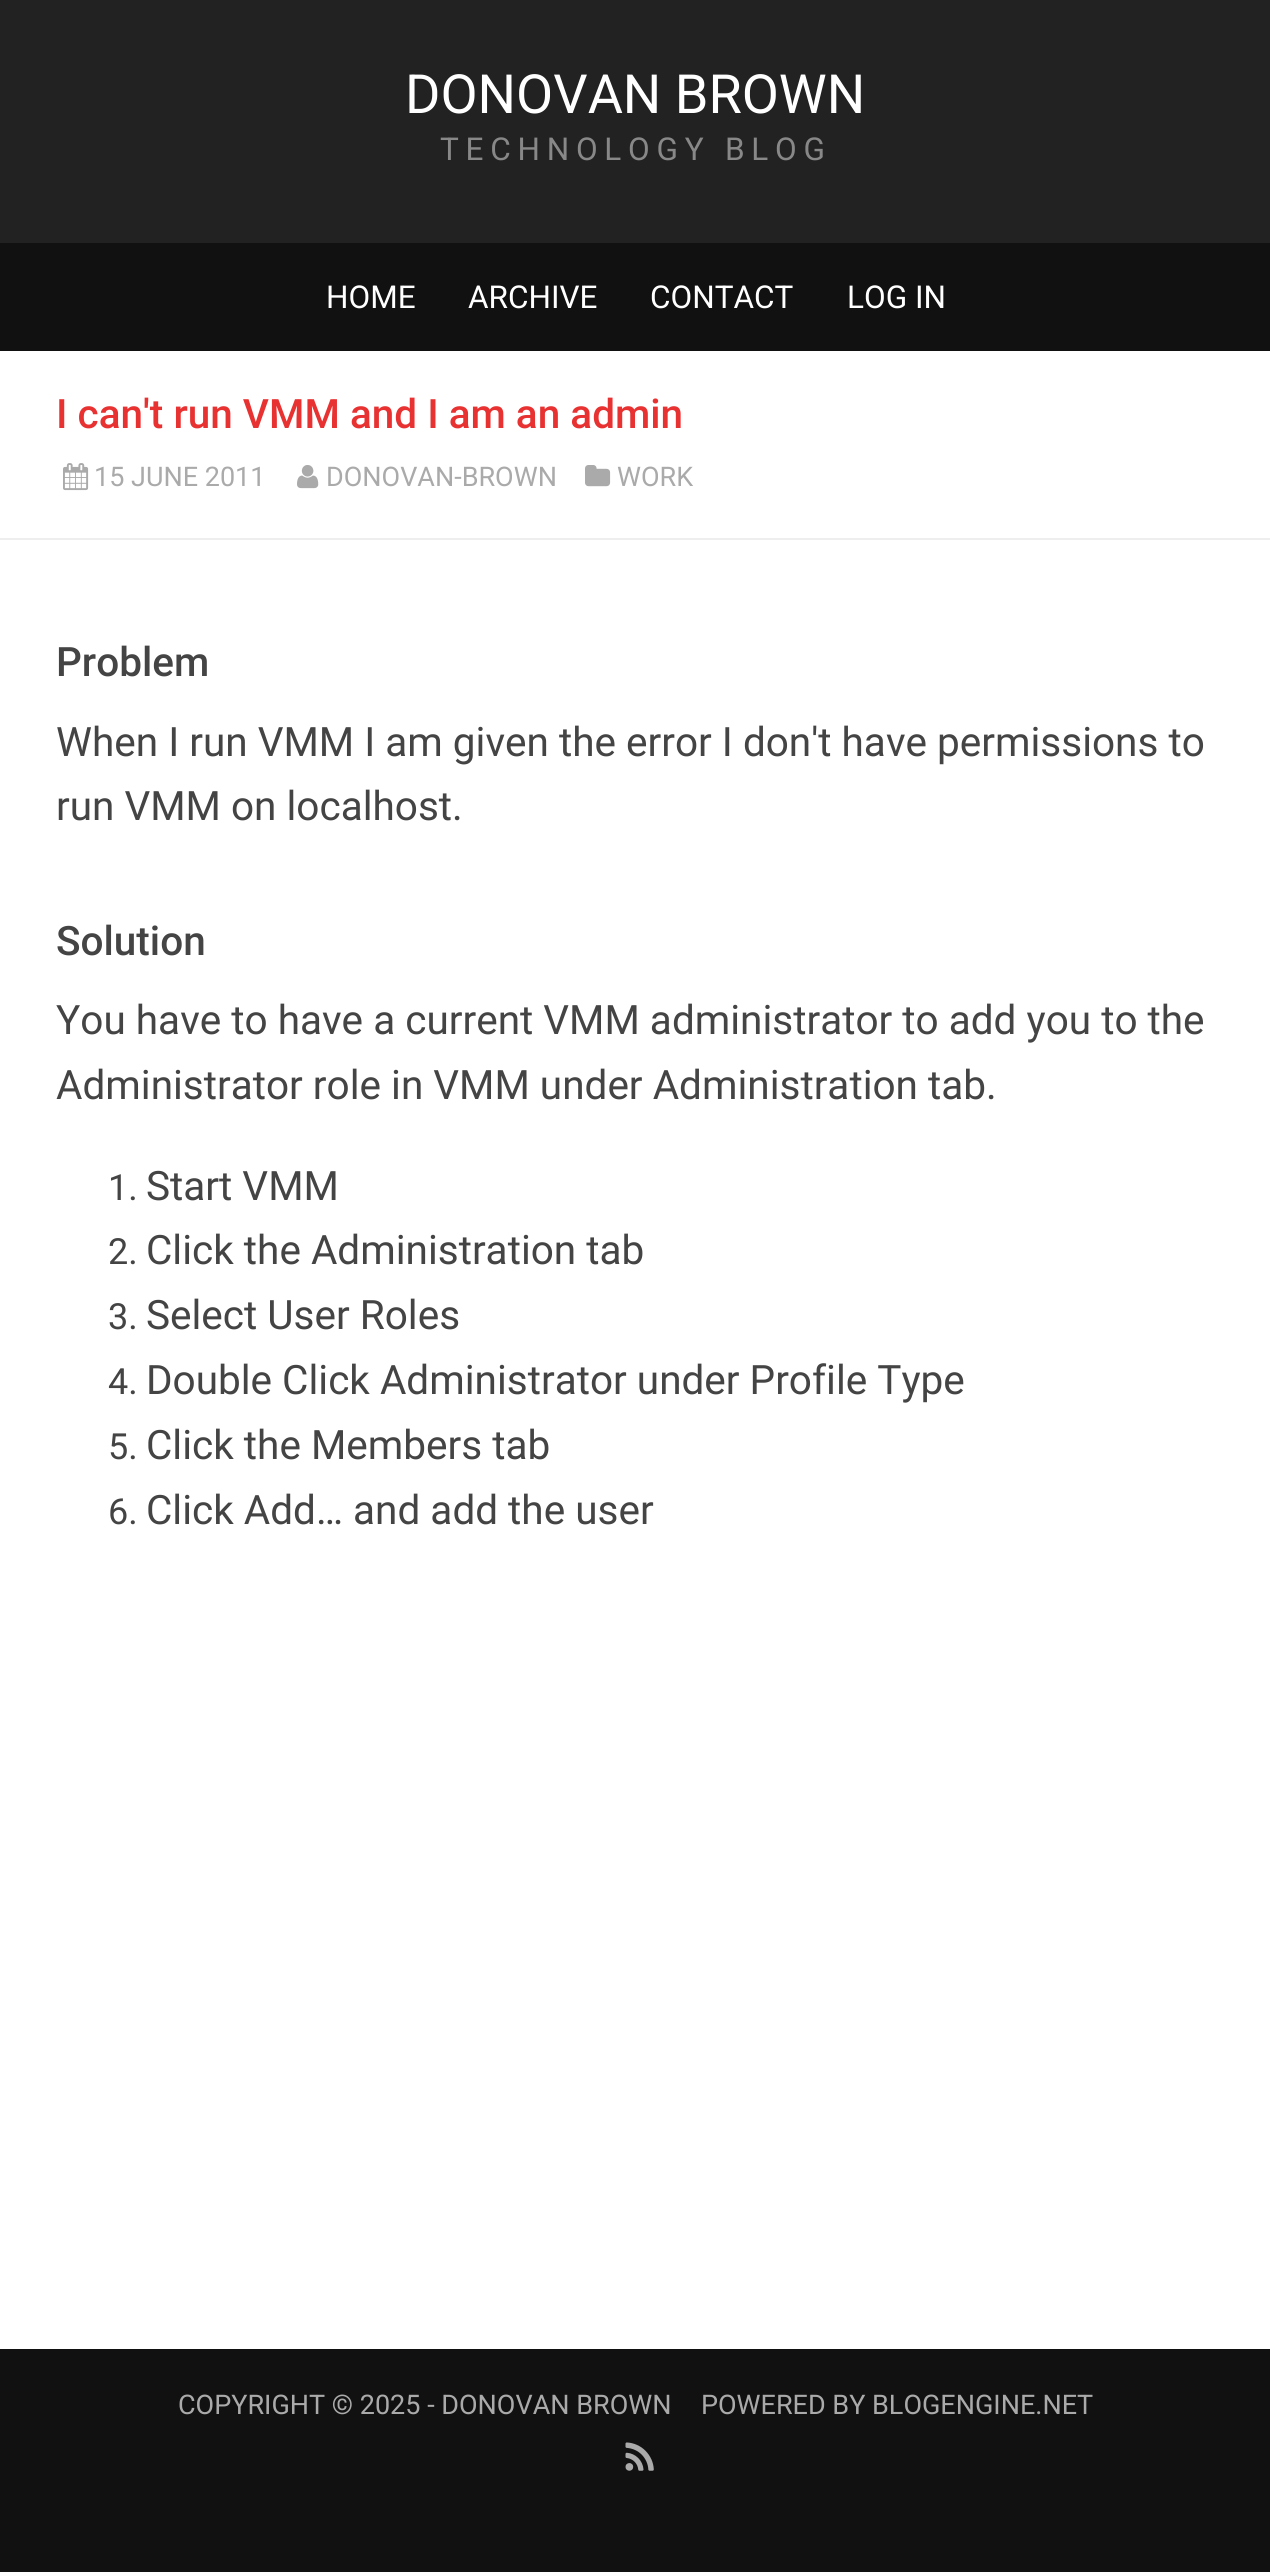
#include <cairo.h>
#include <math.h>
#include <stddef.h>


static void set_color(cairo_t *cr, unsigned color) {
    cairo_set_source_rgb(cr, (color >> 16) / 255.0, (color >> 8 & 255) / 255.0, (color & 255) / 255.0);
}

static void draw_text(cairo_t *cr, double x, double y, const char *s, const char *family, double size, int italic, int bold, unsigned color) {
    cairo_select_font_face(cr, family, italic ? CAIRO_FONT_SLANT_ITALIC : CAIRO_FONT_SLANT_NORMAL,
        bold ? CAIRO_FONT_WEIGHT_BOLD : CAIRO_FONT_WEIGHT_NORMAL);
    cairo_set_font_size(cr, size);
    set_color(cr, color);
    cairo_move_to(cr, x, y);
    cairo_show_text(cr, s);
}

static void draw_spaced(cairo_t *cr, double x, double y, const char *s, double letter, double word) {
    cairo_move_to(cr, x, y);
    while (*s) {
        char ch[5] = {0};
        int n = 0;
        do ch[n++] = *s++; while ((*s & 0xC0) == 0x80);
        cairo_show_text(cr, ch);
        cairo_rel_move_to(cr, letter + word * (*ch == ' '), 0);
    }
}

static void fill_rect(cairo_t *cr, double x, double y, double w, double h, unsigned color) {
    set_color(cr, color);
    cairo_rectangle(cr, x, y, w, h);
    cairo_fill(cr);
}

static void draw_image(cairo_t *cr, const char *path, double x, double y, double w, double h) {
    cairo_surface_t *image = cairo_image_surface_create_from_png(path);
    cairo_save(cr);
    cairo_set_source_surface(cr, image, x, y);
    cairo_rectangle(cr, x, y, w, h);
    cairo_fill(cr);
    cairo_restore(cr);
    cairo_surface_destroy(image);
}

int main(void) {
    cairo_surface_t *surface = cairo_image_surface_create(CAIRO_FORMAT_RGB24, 1270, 2572);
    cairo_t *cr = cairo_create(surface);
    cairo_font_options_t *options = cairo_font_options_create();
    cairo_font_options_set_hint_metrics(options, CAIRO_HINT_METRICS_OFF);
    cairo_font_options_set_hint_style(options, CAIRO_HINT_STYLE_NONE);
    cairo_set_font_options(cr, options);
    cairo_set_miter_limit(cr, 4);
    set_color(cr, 0xFFFFFF);
    cairo_paint(cr);
    fill_rect(cr, 0, 0, 1270, 243, 0x222222);
    draw_text(cr, 405, 113, "DONOVAN BROWN", "Roboto", 54, 0, 0, 0xFFFFFF);
    cairo_set_font_size(cr, 31.5);
    set_color(cr, 0x888888);
    draw_spaced(cr, 440, 160, "TECHNOLOGY BLOG", 6.75, 0);
    fill_rect(cr, 0, 243, 1270, 108, 0x111111);
    draw_text(cr, 326, 308, "HOME", "Roboto", 31.5, 0, 0, 0xFFFFFF);
    draw_text(cr, 468, 308, "ARCHIVE", "Roboto", 31.5, 0, 0, 0xFFFFFF);
    draw_text(cr, 650, 308, "CONTACT", "Roboto", 31.5, 0, 0, 0xFFFFFF);
    draw_text(cr, 847, 308, "LOG IN", "Roboto", 31.5, 0, 0, 0xFFFFFF);
    fill_rect(cr, 0, 538, 1270, 2, 0xEEEEEE);
    draw_text(cr, 56, 428, "I can't run VMM and I am an admin", "Roboto Medium", 40.5, 0, 0, 0xE83232);
    draw_image(cr, "assets/img1.png", 63, 463, 26, 28);
    draw_text(cr, 94, 486, "15 JUNE 2011", "Roboto", 27, 0, 0, 0xAAAAAA);
    draw_image(cr, "assets/img2.png", 297, 465, 22, 24);
    draw_text(cr, 326, 486, "DONOVAN-BROWN", "Roboto", 27, 0, 0, 0xAAAAAA);
    draw_image(cr, "assets/img3.png", 585, 465, 26, 22);
    draw_text(cr, 617, 486, "WORK", "Roboto", 27, 0, 0, 0xAAAAAA);
    draw_text(cr, 56, 676, "Problem", "Roboto Medium", 40.5, 0, 0, 0x444444);
    draw_text(cr, 56, 756, "When I run VMM I am given the error I don't have permissions to", "Roboto", 40.5, 0, 0, 0x444444);
    draw_text(cr, 56, 820, "run VMM on localhost.", "Roboto", 40.5, 0, 0, 0x444444);
    draw_text(cr, 56, 955, "Solution", "Roboto Medium", 40.5, 0, 0, 0x444444);
    draw_text(cr, 56, 1034, "You have to have a current VMM administrator to add you to the", "Roboto", 40.5, 0, 0, 0x444444);
    draw_text(cr, 56, 1099, "Administrator role in VMM under Administration tab.", "Roboto", 40.5, 0, 0, 0x444444);
    draw_text(cr, 108, 1200, "1.", "Roboto", 36, 0, 0, 0x444444);
    draw_text(cr, 146, 1200, "Start VMM", "Roboto", 40.5, 0, 0, 0x444444);
    draw_text(cr, 108, 1264, "2.", "Roboto", 36, 0, 0, 0x444444);
    draw_text(cr, 146, 1264, "Click the Administration tab", "Roboto", 40.5, 0, 0, 0x444444);
    draw_text(cr, 108, 1329, "3.", "Roboto", 36, 0, 0, 0x444444);
    draw_text(cr, 146, 1329, "Select User Roles", "Roboto", 40.5, 0, 0, 0x444444);
    draw_text(cr, 108, 1394, "4.", "Roboto", 36, 0, 0, 0x444444);
    draw_text(cr, 146, 1394, "Double Click Administrator under Profile Type", "Roboto", 40.5, 0, 0, 0x444444);
    draw_text(cr, 108, 1459, "5.", "Roboto", 36, 0, 0, 0x444444);
    draw_text(cr, 146, 1459, "Click the Members tab", "Roboto", 40.5, 0, 0, 0x444444);
    draw_text(cr, 108, 1524, "6.", "Roboto", 36, 0, 0, 0x444444);
    draw_text(cr, 146, 1524, "Click Add… and add the user", "Roboto", 40.5, 0, 0, 0x444444);
    fill_rect(cr, 0, 2349, 1270, 223, 0x111111);
    draw_text(cr, 178, 2414, "COPYRIGHT © 2025 - DONOVAN BROWN", "Roboto", 27, 0, 0, 0xAAAAAA);
    draw_text(cr, 701, 2414, "POWERED BY BLOGENGINE.NET", "Roboto", 27, 0, 0, 0xAAAAAA);
    draw_image(cr, "assets/img4.png", 625, 2442, 29, 29);
    cairo_surface_write_to_png(surface, "output.png");
    cairo_font_options_destroy(options);
    cairo_destroy(cr);
    cairo_surface_destroy(surface);
    return 0;
}
